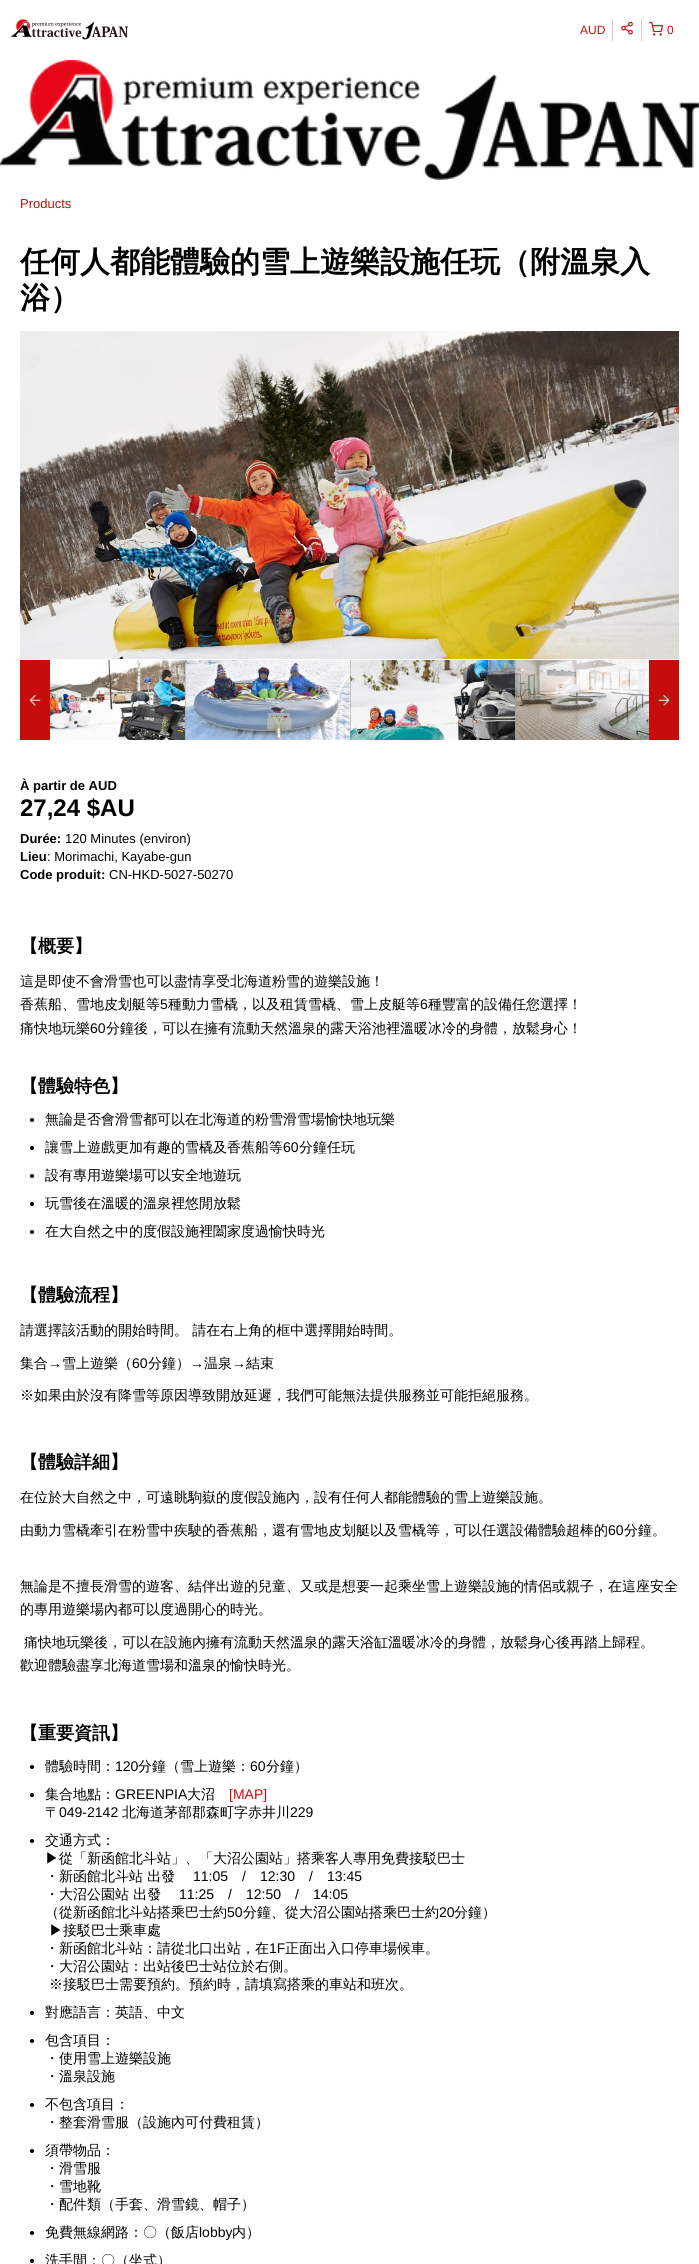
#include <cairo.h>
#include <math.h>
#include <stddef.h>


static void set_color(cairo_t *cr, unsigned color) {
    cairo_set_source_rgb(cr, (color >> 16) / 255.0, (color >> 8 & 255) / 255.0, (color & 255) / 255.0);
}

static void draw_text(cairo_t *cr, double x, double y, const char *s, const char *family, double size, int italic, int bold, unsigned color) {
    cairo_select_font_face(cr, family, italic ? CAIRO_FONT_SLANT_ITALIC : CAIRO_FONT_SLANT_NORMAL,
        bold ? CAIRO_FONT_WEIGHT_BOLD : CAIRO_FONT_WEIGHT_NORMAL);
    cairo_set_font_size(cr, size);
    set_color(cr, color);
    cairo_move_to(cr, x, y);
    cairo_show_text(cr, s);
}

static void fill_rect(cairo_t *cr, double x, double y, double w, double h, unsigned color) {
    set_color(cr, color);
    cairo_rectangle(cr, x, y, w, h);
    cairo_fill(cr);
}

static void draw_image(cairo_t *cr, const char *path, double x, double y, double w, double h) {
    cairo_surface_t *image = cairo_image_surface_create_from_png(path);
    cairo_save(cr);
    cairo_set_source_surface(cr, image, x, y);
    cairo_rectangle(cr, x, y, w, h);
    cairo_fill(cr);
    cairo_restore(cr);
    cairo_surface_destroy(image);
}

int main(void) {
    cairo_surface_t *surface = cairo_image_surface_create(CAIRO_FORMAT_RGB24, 699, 2264);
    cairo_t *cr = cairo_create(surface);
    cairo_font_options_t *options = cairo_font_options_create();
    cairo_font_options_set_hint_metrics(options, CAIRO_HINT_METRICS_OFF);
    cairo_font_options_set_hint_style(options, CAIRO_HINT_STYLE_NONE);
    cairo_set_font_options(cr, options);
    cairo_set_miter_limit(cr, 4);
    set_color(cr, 0xFFFFFF);
    cairo_paint(cr);
    draw_image(cr, "assets/img1.png", 11, 19, 117, 21);
    fill_rect(cr, 612, 19, 1, 22, 0xCCD1CA);
    draw_text(cr, 580, 34, "AUD", "Liberation Sans", 12, 0, 0, 0xC70C0C);
    fill_rect(cr, 641, 19, 1, 22, 0xCCD1CA);
    draw_image(cr, "assets/img2.png", 621, 21, 12, 14);
    draw_image(cr, "assets/img3.png", 649, 22, 14, 14);
    draw_text(cr, 667, 34, "0", "Liberation Sans", 12, 0, 0, 0xC70C0C);
    draw_image(cr, "assets/img4.png", 0, 60, 699, 120);
    draw_text(cr, 20, 208, "Products", "Liberation Sans", 13, 0, 0, 0xC70C0C);
    draw_text(cr, 20, 272, "任何人都能體驗的雪上遊樂設施任玩（附溫泉入", "WenQuanYi Zen Hei", 30, 0, 1, 0x000000);
    draw_text(cr, 20, 308, "浴）", "WenQuanYi Zen Hei", 30, 0, 1, 0x000000);
    draw_image(cr, "assets/img5.png", 20, 331, 659, 328);
    fill_rect(cr, 20, 660, 30, 80, 0xC70C0C);
    draw_image(cr, "assets/img6.png", 29, 695, 12, 11);
    draw_image(cr, "assets/img7.png", 50, 660, 135, 80);
    draw_image(cr, "assets/img8.png", 185, 660, 165, 80);
    cairo_set_source_rgba(cr, 0.596, 0.639, 0.58, 0.5);
    cairo_rectangle(cr, 185, 660, 1, 80);
    cairo_fill(cr);
    draw_image(cr, "assets/img9.png", 350, 660, 165, 80);
    cairo_rectangle(cr, 350, 660, 1, 80);
    cairo_fill(cr);
    draw_image(cr, "assets/img10.png", 515, 660, 134, 80);
    cairo_rectangle(cr, 515, 660, 1, 80);
    cairo_fill(cr);
    fill_rect(cr, 649, 660, 30, 80, 0xC70C0C);
    draw_image(cr, "assets/img11.png", 658, 695, 12, 11);
    draw_text(cr, 20, 790, "À partir de AUD", "Liberation Sans", 13, 0, 1, 0x000000);
    draw_text(cr, 20, 816, "27,24 $AU", "Liberation Sans", 24, 0, 1, 0x000000);
    draw_text(cr, 20, 843, "Durée:", "Liberation Sans", 13, 0, 1, 0x000000);
    draw_text(cr, 65, 843, "120 Minutes (environ)", "Liberation Sans", 13, 0, 0, 0x000000);
    draw_text(cr, 20, 861, "Lieu", "Liberation Sans", 13, 0, 1, 0x000000);
    draw_text(cr, 47, 861, ": Morimachi, Kayabe-gun", "Liberation Sans", 13, 0, 0, 0x000000);
    draw_text(cr, 20, 879, "Code produit:", "Liberation Sans", 13, 0, 1, 0x000000);
    draw_text(cr, 109, 879, "CN-HKD-5027-50270", "Liberation Sans", 13, 0, 0, 0x000000);
    draw_text(cr, 20, 952, "【概要】", "WenQuanYi Zen Hei", 18, 0, 1, 0x000000);
    draw_text(cr, 20, 986, "這是即使不會滑雪也可以盡情享受北海道粉雪的遊樂設施！", "WenQuanYi Zen Hei Medium", 14, 0, 0, 0x000000);
    draw_text(cr, 20, 1009, "香蕉船、雪地皮划艇等", "WenQuanYi Zen Hei Medium", 14, 0, 0, 0x000000);
    draw_text(cr, 160, 1009, "5", "Liberation Sans", 14, 0, 0, 0x000000);
    draw_text(cr, 168, 1009, "種動力雪橇，以及租賃雪橇、雪上皮艇等", "WenQuanYi Zen Hei Medium", 14, 0, 0, 0x000000);
    draw_text(cr, 420, 1009, "6", "Liberation Sans", 14, 0, 0, 0x000000);
    draw_text(cr, 428, 1009, "種豐富的設備任您選擇！", "WenQuanYi Zen Hei Medium", 14, 0, 0, 0x000000);
    draw_text(cr, 20, 1033, "痛快地玩樂", "WenQuanYi Zen Hei Medium", 14, 0, 0, 0x000000);
    draw_text(cr, 90, 1033, "60", "Liberation Sans", 14, 0, 0, 0x000000);
    draw_text(cr, 106, 1033, "分鐘後，可以在擁有流動天然溫泉的露天浴池裡溫暖冰冷的身體，放鬆身心！", "WenQuanYi Zen Hei Medium", 14, 0, 0, 0x000000);
    draw_text(cr, 20, 1092, "【體驗特色】", "WenQuanYi Zen Hei", 18, 0, 1, 0x000000);
    cairo_new_path(cr);
    cairo_arc(cr, 32, 1120, 2, 0, 2 * M_PI);
    cairo_fill(cr);
    draw_text(cr, 45, 1124, "無論是否會滑雪都可以在北海道的粉雪滑雪場愉快地玩樂", "WenQuanYi Zen Hei Medium", 14, 0, 0, 0x000000);
    cairo_new_path(cr);
    cairo_arc(cr, 32, 1148, 2, 0, 2 * M_PI);
    cairo_fill(cr);
    draw_text(cr, 45, 1152, "讓雪上遊戲更加有趣的雪橇及香蕉船等", "WenQuanYi Zen Hei Medium", 14, 0, 0, 0x000000);
    draw_text(cr, 283, 1152, "60", "Liberation Sans", 14, 0, 0, 0x000000);
    draw_text(cr, 299, 1152, "分鐘任玩", "WenQuanYi Zen Hei Medium", 14, 0, 0, 0x000000);
    cairo_new_path(cr);
    cairo_arc(cr, 32, 1176, 2, 0, 2 * M_PI);
    cairo_fill(cr);
    draw_text(cr, 45, 1180, "設有專用遊樂場可以安全地遊玩", "WenQuanYi Zen Hei Medium", 14, 0, 0, 0x000000);
    cairo_new_path(cr);
    cairo_arc(cr, 32, 1204, 2, 0, 2 * M_PI);
    cairo_fill(cr);
    draw_text(cr, 45, 1208, "玩雪後在溫暖的溫泉裡悠閒放鬆", "WenQuanYi Zen Hei Medium", 14, 0, 0, 0x000000);
    cairo_new_path(cr);
    cairo_arc(cr, 32, 1232, 2, 0, 2 * M_PI);
    cairo_fill(cr);
    draw_text(cr, 45, 1236, "在大自然之中的度假設施裡闔家度過愉快時光", "WenQuanYi Zen Hei Medium", 14, 0, 0, 0x000000);
    draw_text(cr, 20, 1301, "【體驗流程】", "WenQuanYi Zen Hei", 18, 0, 1, 0x000000);
    draw_text(cr, 20, 1335, "請選擇該活動的開始時間。 請在右上角的框中選擇開始時間。", "WenQuanYi Zen Hei Medium", 14, 0, 0, 0x000000);
    draw_text(cr, 20, 1368, "集合", "WenQuanYi Zen Hei Medium", 14, 0, 0, 0x000000);
    draw_text(cr, 48, 1368, "→", "Liberation Sans", 14, 0, 0, 0x000000);
    draw_text(cr, 62, 1368, "雪上遊樂（", "WenQuanYi Zen Hei Medium", 14, 0, 0, 0x000000);
    draw_text(cr, 132, 1368, "60", "Liberation Sans", 14, 0, 0, 0x000000);
    draw_text(cr, 148, 1368, "分鐘）", "WenQuanYi Zen Hei Medium", 14, 0, 0, 0x000000);
    draw_text(cr, 190, 1368, "→", "Liberation Sans", 14, 0, 0, 0x000000);
    draw_text(cr, 204, 1368, "温泉", "WenQuanYi Zen Hei Medium", 14, 0, 0, 0x000000);
    draw_text(cr, 232, 1368, "→", "Liberation Sans", 14, 0, 0, 0x000000);
    draw_text(cr, 246, 1368, "結束", "WenQuanYi Zen Hei Medium", 14, 0, 0, 0x000000);
    draw_text(cr, 20, 1400, "※如果由於沒有降雪等原因導致開放延遲，我們可能無法提供服務並可能拒絕服務。", "WenQuanYi Zen Hei Medium", 14, 0, 0, 0x000000);
    draw_text(cr, 20, 1468, "【體驗詳細】", "WenQuanYi Zen Hei", 18, 0, 1, 0x000000);
    draw_text(cr, 20, 1502, "在位於大自然之中，可遠眺駒嶽的度假設施內，設有任何人都能體驗的雪上遊樂設施。", "WenQuanYi Zen Hei Medium", 14, 0, 0, 0x000000);
    draw_text(cr, 20, 1535, "由動力雪橇牽引在粉雪中疾駛的香蕉船，還有雪地皮划艇以及雪橇等，可以任選設備體驗超棒的", "WenQuanYi Zen Hei Medium", 14, 0, 0, 0x000000);
    draw_text(cr, 608, 1535, "60", "Liberation Sans", 14, 0, 0, 0x000000);
    draw_text(cr, 624, 1535, "分鐘。", "WenQuanYi Zen Hei Medium", 14, 0, 0, 0x000000);
    draw_text(cr, 20, 1591, "無論是不擅長滑雪的遊客、結伴出遊的兒童、又或是想要一起乘坐雪上遊樂設施的情侶或親子，在這座安全", "WenQuanYi Zen Hei Medium", 14, 0, 0, 0x000000);
    draw_text(cr, 20, 1614, "的專用遊樂場內都可以度過開心的時光。", "WenQuanYi Zen Hei Medium", 14, 0, 0, 0x000000);
    draw_text(cr, 24, 1647, "痛快地玩樂後，可以在設施內擁有流動天然溫泉的露天浴缸溫暖冰冷的身體，放鬆身心後再踏上歸程。", "WenQuanYi Zen Hei Medium", 14, 0, 0, 0x000000);
    draw_text(cr, 20, 1670, "歡迎體驗盡享北海道雪場和溫泉的愉快時光。", "WenQuanYi Zen Hei Medium", 14, 0, 0, 0x000000);
    draw_text(cr, 20, 1739, "【重要資訊】", "WenQuanYi Zen Hei", 18, 0, 1, 0x000000);
    cairo_new_path(cr);
    cairo_arc(cr, 32, 1767, 2, 0, 2 * M_PI);
    cairo_fill(cr);
    draw_text(cr, 45, 1771, "體驗時間：", "WenQuanYi Zen Hei Medium", 14, 0, 0, 0x000000);
    draw_text(cr, 115, 1771, "120", "Liberation Sans", 14, 0, 0, 0x000000);
    draw_text(cr, 138, 1771, "分鐘（雪上遊樂：", "WenQuanYi Zen Hei Medium", 14, 0, 0, 0x000000);
    draw_text(cr, 250, 1771, "60", "Liberation Sans", 14, 0, 0, 0x000000);
    draw_text(cr, 266, 1771, "分鐘）", "WenQuanYi Zen Hei Medium", 14, 0, 0, 0x000000);
    cairo_new_path(cr);
    cairo_arc(cr, 32, 1795, 2, 0, 2 * M_PI);
    cairo_fill(cr);
    draw_text(cr, 45, 1799, "集合地點：", "WenQuanYi Zen Hei Medium", 14, 0, 0, 0x000000);
    draw_text(cr, 115, 1799, "GREENPIA", "Liberation Sans", 14, 0, 0, 0x000000);
    draw_text(cr, 187, 1799, "大沼", "WenQuanYi Zen Hei Medium", 14, 0, 0, 0x000000);
    draw_text(cr, 229, 1799, "[MAP]", "Liberation Sans", 14, 0, 0, 0xC70C0C);
    draw_text(cr, 45, 1817, "〒", "WenQuanYi Zen Hei Medium", 14, 0, 0, 0x000000);
    draw_text(cr, 59, 1817, "049-2142", "Liberation Sans", 14, 0, 0, 0x000000);
    draw_text(cr, 122, 1817, "北海道茅部郡森町字赤井川", "WenQuanYi Zen Hei Medium", 14, 0, 0, 0x000000);
    draw_text(cr, 290, 1817, "229", "Liberation Sans", 14, 0, 0, 0x000000);
    cairo_new_path(cr);
    cairo_arc(cr, 32, 1841, 2, 0, 2 * M_PI);
    cairo_fill(cr);
    draw_text(cr, 45, 1845, "交通方式：", "WenQuanYi Zen Hei Medium", 14, 0, 0, 0x000000);
    draw_text(cr, 45, 1863, "▶從「新函館北斗站」、「大沼公園站」搭乘客人專用免費接駁巴士", "WenQuanYi Zen Hei Medium", 14, 0, 0, 0x000000);
    draw_text(cr, 45, 1881, "・新函館北斗站 出發", "WenQuanYi Zen Hei Medium", 14, 0, 0, 0x000000);
    draw_text(cr, 193, 1881, "11:05", "Liberation Sans", 14, 0, 0, 0x000000);
    draw_text(cr, 242, 1881, "/", "Liberation Sans", 14, 0, 0, 0x000000);
    draw_text(cr, 260, 1881, "12:30", "Liberation Sans", 14, 0, 0, 0x000000);
    draw_text(cr, 309, 1881, "/", "Liberation Sans", 14, 0, 0, 0x000000);
    draw_text(cr, 327, 1881, "13:45", "Liberation Sans", 14, 0, 0, 0x000000);
    draw_text(cr, 45, 1899, "・大沼公園站 出發", "WenQuanYi Zen Hei Medium", 14, 0, 0, 0x000000);
    draw_text(cr, 179, 1899, "11:25", "Liberation Sans", 14, 0, 0, 0x000000);
    draw_text(cr, 228, 1899, "/", "Liberation Sans", 14, 0, 0, 0x000000);
    draw_text(cr, 246, 1899, "12:50", "Liberation Sans", 14, 0, 0, 0x000000);
    draw_text(cr, 295, 1899, "/", "Liberation Sans", 14, 0, 0, 0x000000);
    draw_text(cr, 313, 1899, "14:05", "Liberation Sans", 14, 0, 0, 0x000000);
    draw_text(cr, 45, 1917, "（從新函館北斗站搭乘巴士約", "WenQuanYi Zen Hei Medium", 14, 0, 0, 0x000000);
    draw_text(cr, 227, 1917, "50", "Liberation Sans", 14, 0, 0, 0x000000);
    draw_text(cr, 243, 1917, "分鐘、從大沼公園站搭乘巴士約", "WenQuanYi Zen Hei Medium", 14, 0, 0, 0x000000);
    draw_text(cr, 439, 1917, "20", "Liberation Sans", 14, 0, 0, 0x000000);
    draw_text(cr, 454, 1917, "分鐘）", "WenQuanYi Zen Hei Medium", 14, 0, 0, 0x000000);
    draw_text(cr, 49, 1935, "▶接駁巴士乘車處", "WenQuanYi Zen Hei Medium", 14, 0, 0, 0x000000);
    draw_text(cr, 45, 1953, "・新函館北斗站：請從北口出站，在", "WenQuanYi Zen Hei Medium", 14, 0, 0, 0x000000);
    draw_text(cr, 269, 1953, "1F", "Liberation Sans", 14, 0, 0, 0x000000);
    draw_text(cr, 285, 1953, "正面出入口停車場候車。", "WenQuanYi Zen Hei Medium", 14, 0, 0, 0x000000);
    draw_text(cr, 45, 1971, "・大沼公園站：出站後巴士站位於右側。", "WenQuanYi Zen Hei Medium", 14, 0, 0, 0x000000);
    draw_text(cr, 49, 1989, "※接駁巴士需要預約。預約時，請填寫搭乘的車站和班次。", "WenQuanYi Zen Hei Medium", 14, 0, 0, 0x000000);
    cairo_new_path(cr);
    cairo_arc(cr, 32, 2013, 2, 0, 2 * M_PI);
    cairo_fill(cr);
    draw_text(cr, 45, 2017, "對應語言：英語、中文", "WenQuanYi Zen Hei Medium", 14, 0, 0, 0x000000);
    cairo_new_path(cr);
    cairo_arc(cr, 32, 2041, 2, 0, 2 * M_PI);
    cairo_fill(cr);
    draw_text(cr, 45, 2045, "包含項目：", "WenQuanYi Zen Hei Medium", 14, 0, 0, 0x000000);
    draw_text(cr, 45, 2063, "・使用雪上遊樂設施", "WenQuanYi Zen Hei Medium", 14, 0, 0, 0x000000);
    draw_text(cr, 45, 2081, "・溫泉設施", "WenQuanYi Zen Hei Medium", 14, 0, 0, 0x000000);
    cairo_new_path(cr);
    cairo_arc(cr, 32, 2105, 2, 0, 2 * M_PI);
    cairo_fill(cr);
    draw_text(cr, 45, 2109, "不包含項目：", "WenQuanYi Zen Hei Medium", 14, 0, 0, 0x000000);
    draw_text(cr, 45, 2127, "・整套滑雪服（設施內可付費租賃）", "WenQuanYi Zen Hei Medium", 14, 0, 0, 0x000000);
    cairo_new_path(cr);
    cairo_arc(cr, 32, 2151, 2, 0, 2 * M_PI);
    cairo_fill(cr);
    draw_text(cr, 45, 2155, "須帶物品：", "WenQuanYi Zen Hei Medium", 14, 0, 0, 0x000000);
    draw_text(cr, 45, 2173, "・滑雪服", "WenQuanYi Zen Hei Medium", 14, 0, 0, 0x000000);
    draw_text(cr, 45, 2191, "・雪地靴", "WenQuanYi Zen Hei Medium", 14, 0, 0, 0x000000);
    draw_text(cr, 45, 2209, "・配件類（手套、滑雪鏡、帽子）", "WenQuanYi Zen Hei Medium", 14, 0, 0, 0x000000);
    cairo_new_path(cr);
    cairo_arc(cr, 32, 2233, 2, 0, 2 * M_PI);
    cairo_fill(cr);
    draw_text(cr, 45, 2237, "免費無線網路：〇（飯店", "WenQuanYi Zen Hei Medium", 14, 0, 0, 0x000000);
    draw_text(cr, 199, 2237, "lobby", "Liberation Sans", 14, 0, 0, 0x000000);
    draw_text(cr, 232, 2237, "内）", "WenQuanYi Zen Hei Medium", 14, 0, 0, 0x000000);
    cairo_new_path(cr);
    cairo_arc(cr, 32, 2261, 2, 0, 2 * M_PI);
    cairo_fill(cr);
    draw_text(cr, 45, 2265, "洗手間：〇（坐式）", "WenQuanYi Zen Hei Medium", 14, 0, 0, 0x000000);
    cairo_surface_write_to_png(surface, "output.png");
    cairo_font_options_destroy(options);
    cairo_destroy(cr);
    cairo_surface_destroy(surface);
    return 0;
}
